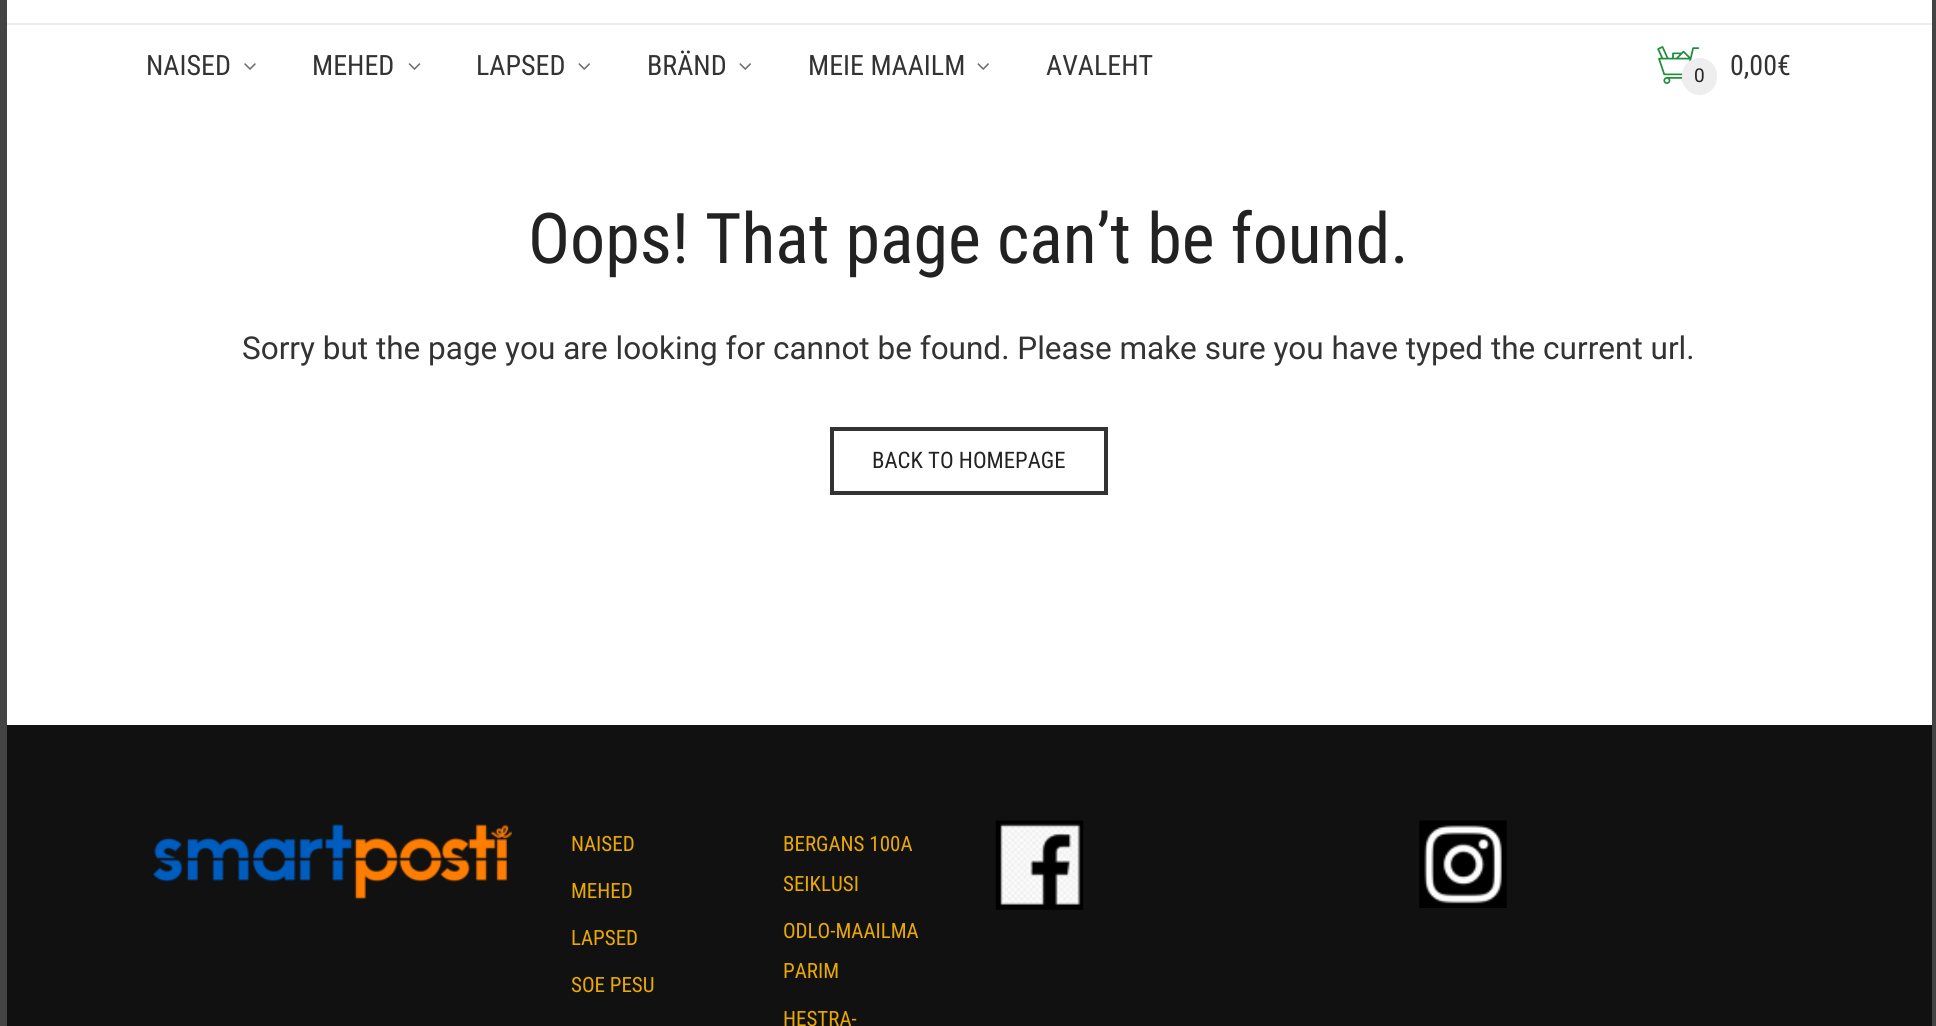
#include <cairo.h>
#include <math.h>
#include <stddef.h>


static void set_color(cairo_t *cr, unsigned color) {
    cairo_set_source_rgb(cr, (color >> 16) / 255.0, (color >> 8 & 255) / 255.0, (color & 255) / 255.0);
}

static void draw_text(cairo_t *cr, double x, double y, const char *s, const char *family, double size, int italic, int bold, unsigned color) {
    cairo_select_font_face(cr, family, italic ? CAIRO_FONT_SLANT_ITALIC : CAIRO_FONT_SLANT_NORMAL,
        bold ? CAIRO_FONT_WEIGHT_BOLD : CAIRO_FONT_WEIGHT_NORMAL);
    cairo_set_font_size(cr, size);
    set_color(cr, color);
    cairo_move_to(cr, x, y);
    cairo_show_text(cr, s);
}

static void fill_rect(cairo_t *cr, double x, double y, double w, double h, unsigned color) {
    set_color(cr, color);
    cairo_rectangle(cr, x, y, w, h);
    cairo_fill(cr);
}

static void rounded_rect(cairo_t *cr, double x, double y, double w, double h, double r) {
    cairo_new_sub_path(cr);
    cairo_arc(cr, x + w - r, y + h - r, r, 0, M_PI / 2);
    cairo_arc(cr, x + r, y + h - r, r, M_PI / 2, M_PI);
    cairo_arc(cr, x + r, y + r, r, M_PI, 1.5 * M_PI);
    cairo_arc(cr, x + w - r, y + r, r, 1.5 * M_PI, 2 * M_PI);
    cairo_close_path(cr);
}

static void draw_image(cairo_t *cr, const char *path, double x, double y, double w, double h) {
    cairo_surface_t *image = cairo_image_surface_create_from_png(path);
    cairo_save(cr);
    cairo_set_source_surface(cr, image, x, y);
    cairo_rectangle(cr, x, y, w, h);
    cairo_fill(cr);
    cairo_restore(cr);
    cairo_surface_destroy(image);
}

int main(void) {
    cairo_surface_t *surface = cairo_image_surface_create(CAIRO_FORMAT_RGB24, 1936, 1026);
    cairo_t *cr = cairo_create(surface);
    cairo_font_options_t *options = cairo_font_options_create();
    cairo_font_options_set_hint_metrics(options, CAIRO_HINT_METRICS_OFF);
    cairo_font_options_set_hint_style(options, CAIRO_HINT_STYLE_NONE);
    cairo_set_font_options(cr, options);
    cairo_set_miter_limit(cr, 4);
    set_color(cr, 0x444444);
    cairo_paint(cr);
    fill_rect(cr, 7, 0, 1925, 725, 0xFFFFFF);
    fill_rect(cr, 7, 23, 1925, 2, 0xEEEEEE);
    draw_text(cr, 146, 75, "NAISED", "Roboto Condensed", 28, 0, 0, 0x333333);
    draw_image(cr, "assets/img1.png", 244, 63, 12, 7);
    draw_text(cr, 312, 75, "MEHED", "Roboto Condensed", 28, 0, 0, 0x333333);
    draw_image(cr, "assets/img2.png", 408, 63, 13, 7);
    draw_text(cr, 476, 75, "LAPSED", "Roboto Condensed", 28, 0, 0, 0x333333);
    draw_image(cr, "assets/img3.png", 578, 63, 12, 7);
    draw_text(cr, 647, 75, "BRÄND", "Roboto Condensed", 28, 0, 0, 0x333333);
    draw_image(cr, "assets/img3.png", 739, 63, 12, 7);
    draw_text(cr, 808, 75, "MEIE MAAILM", "Roboto Condensed", 28, 0, 0, 0x333333);
    draw_image(cr, "assets/img3.png", 977, 63, 12, 7);
    draw_text(cr, 1046, 75, "AVALEHT", "Roboto Condensed", 28, 0, 0, 0x333333);
    draw_image(cr, "assets/img4.png", 1657, 46, 43, 38);
    set_color(cr, 0xEEEEEE);
    rounded_rect(cr, 1682, 58, 35, 37, 17.5);
    cairo_fill(cr);
    draw_text(cr, 1694, 82, "0", "Roboto", 19, 0, 0, 0x222222);
    draw_text(cr, 1730, 75, "0,00€", "Roboto Condensed", 28, 0, 0, 0x333333);
    draw_text(cr, 528, 263, "Oops! That page can’t be found.", "Roboto Condensed", 70, 0, 0, 0x222222);
    draw_text(cr, 242, 359, "Sorry but the page you are looking for cannot be found. Please make sure you have typed the current url.", "Roboto", 31.5, 0, 0, 0x333333);
    cairo_rectangle(cr, 832, 429, 274, 64);
    cairo_set_line_width(cr, 4);
    cairo_stroke(cr);
    draw_text(cr, 872, 468, "BACK TO HOMEPAGE", "Roboto Condensed", 22.75, 0, 0, 0x222222);
    fill_rect(cr, 7, 725, 1925, 301, 0x111111);
    draw_image(cr, "assets/img5.png", 153, 824, 359, 76);
    draw_text(cr, 571, 851, "NAISED", "Roboto Condensed", 21, 0, 0, 0xEAA900);
    draw_text(cr, 571, 898, "MEHED", "Roboto Condensed", 21, 0, 0, 0xEAA900);
    draw_text(cr, 571, 945, "LAPSED", "Roboto Condensed", 21, 0, 0, 0xEAA900);
    draw_text(cr, 571, 992, "SOE PESU", "Roboto Condensed", 21, 0, 0, 0xEAA900);
    draw_text(cr, 783, 851, "BERGANS 100A", "Roboto Condensed", 21, 0, 0, 0xEAA900);
    draw_text(cr, 783, 891, "SEIKLUSI", "Roboto Condensed", 21, 0, 0, 0xEAA900);
    draw_text(cr, 783, 938, "ODLO-MAAILMA", "Roboto Condensed", 21, 0, 0, 0xEAA900);
    draw_text(cr, 783, 978, "PARIM", "Roboto Condensed", 21, 0, 0, 0xEAA900);
    draw_text(cr, 783, 1026, "HESTRA-", "Roboto Condensed", 21, 0, 0, 0xEAA900);
    draw_image(cr, "assets/img6.png", 995, 820, 89, 90);
    draw_image(cr, "assets/img7.png", 1419, 820, 88, 88);
    cairo_surface_write_to_png(surface, "output.png");
    cairo_font_options_destroy(options);
    cairo_destroy(cr);
    cairo_surface_destroy(surface);
    return 0;
}
